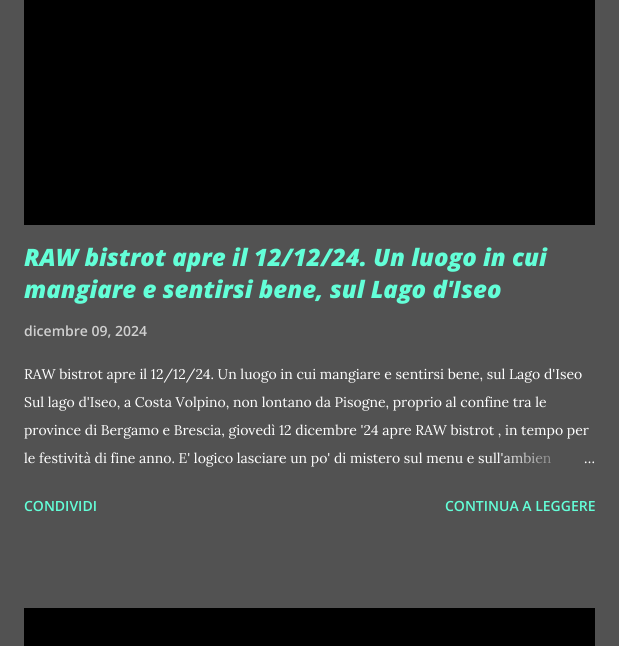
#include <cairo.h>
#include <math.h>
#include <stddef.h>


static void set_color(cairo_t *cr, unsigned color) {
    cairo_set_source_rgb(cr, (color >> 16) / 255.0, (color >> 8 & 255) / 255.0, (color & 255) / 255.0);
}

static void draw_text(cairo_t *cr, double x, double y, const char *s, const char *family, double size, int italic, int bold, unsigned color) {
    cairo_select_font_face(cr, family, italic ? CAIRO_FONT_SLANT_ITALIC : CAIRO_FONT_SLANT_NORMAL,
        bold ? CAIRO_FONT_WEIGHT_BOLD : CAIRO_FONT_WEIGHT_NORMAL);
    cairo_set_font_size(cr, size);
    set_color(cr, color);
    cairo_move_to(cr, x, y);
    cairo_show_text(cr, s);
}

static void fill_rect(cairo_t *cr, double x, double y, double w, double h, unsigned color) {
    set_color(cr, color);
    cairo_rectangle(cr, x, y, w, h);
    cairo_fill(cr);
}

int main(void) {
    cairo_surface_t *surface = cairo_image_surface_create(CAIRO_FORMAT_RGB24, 619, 646);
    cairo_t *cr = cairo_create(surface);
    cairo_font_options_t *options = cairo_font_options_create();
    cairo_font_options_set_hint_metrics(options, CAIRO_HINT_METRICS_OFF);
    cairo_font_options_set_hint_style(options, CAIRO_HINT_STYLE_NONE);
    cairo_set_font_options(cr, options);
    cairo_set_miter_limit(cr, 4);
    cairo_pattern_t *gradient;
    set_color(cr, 0x525252);
    cairo_paint(cr);
    fill_rect(cr, 24, 0, 571, 225, 0x000000);
    draw_text(cr, 24, 266, "RAW bistrot apre il 12/12/24. Un luogo in cui", "Open Sans ExtraBold", 24, 1, 0, 0x63FFD8);
    draw_text(cr, 24, 298, "mangiare e sentirsi bene, sul Lago d'Iseo", "Open Sans ExtraBold", 24, 1, 0, 0x63FFD8);
    draw_text(cr, 24, 336, "dicembre 09, 2024", "Open Sans SemiBold", 14, 0, 0, 0xD0D0D0);
    draw_text(cr, 24, 379, "RAW bistrot apre il 12/12/24. Un luogo in cui mangiare e sentirsi bene, sul Lago d'Iseo", "Lora", 14, 0, 0, 0xFFFFFF);
    draw_text(cr, 24, 407, "Sul lago d'Iseo, a Costa Volpino, non lontano da Pisogne, proprio al confine tra le", "Lora", 14, 0, 0, 0xFFFFFF);
    draw_text(cr, 24, 435, "province di Bergamo e Brescia, giovedì 12 dicembre '24 apre RAW bistrot , in tempo per", "Lora", 14, 0, 0, 0xFFFFFF);
    draw_text(cr, 24, 463, "le festività di fine anno. E' logico lasciare un po' di mistero sul menu e sull'ambien", "Lora", 14, 0, 0, 0xFFFFFF);
    gradient = cairo_pattern_create_linear(595, 458, 499, 458);
    cairo_pattern_add_color_stop_rgba(gradient, 0, 0.322, 0.322, 0.322, 1);
    cairo_pattern_add_color_stop_rgba(gradient, 0.2, 0.322, 0.322, 0.322, 1);
    cairo_pattern_add_color_stop_rgba(gradient, 1, 0.322, 0.322, 0.322, 0);
    cairo_set_source(cr, gradient);
    cairo_pattern_destroy(gradient);
    cairo_rectangle(cr, 501, 452, 50, 12);
    cairo_fill(cr);
    draw_text(cr, 584, 463, "…", "Lora", 14, 0, 0, 0xFFFFFF);
    draw_text(cr, 24, 511, "CONDIVIDI", "Open Sans SemiBold", 14, 0, 0, 0x63FFD8);
    draw_text(cr, 445, 511, "CONTINUA A LEGGERE", "Open Sans SemiBold", 14, 0, 0, 0x63FFD8);
    fill_rect(cr, 24, 608, 571, 38, 0x000000);
    cairo_surface_write_to_png(surface, "output.png");
    cairo_font_options_destroy(options);
    cairo_destroy(cr);
    cairo_surface_destroy(surface);
    return 0;
}
